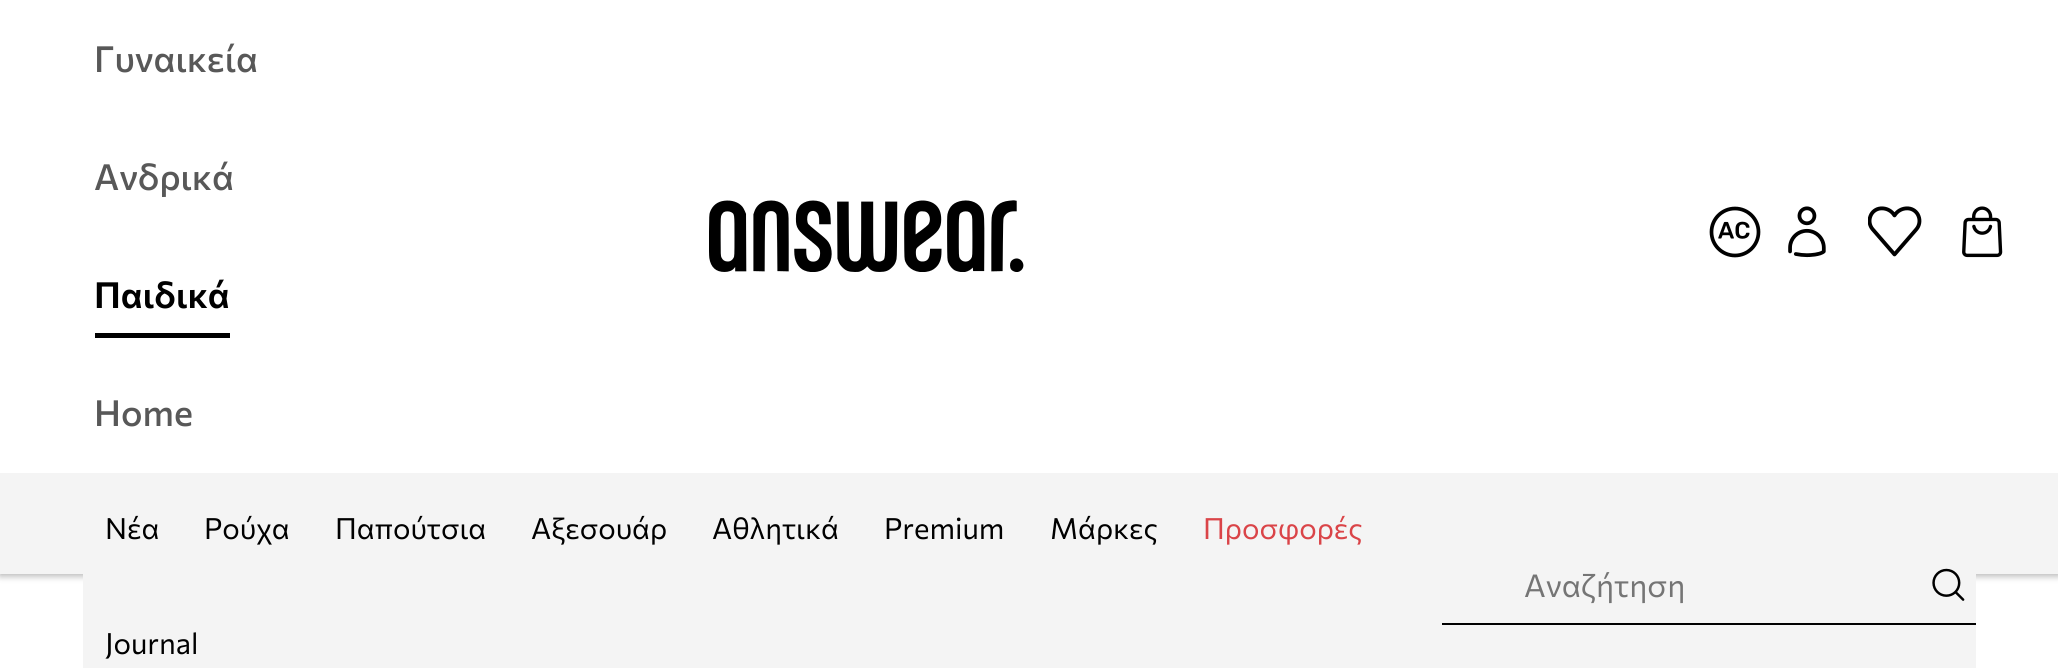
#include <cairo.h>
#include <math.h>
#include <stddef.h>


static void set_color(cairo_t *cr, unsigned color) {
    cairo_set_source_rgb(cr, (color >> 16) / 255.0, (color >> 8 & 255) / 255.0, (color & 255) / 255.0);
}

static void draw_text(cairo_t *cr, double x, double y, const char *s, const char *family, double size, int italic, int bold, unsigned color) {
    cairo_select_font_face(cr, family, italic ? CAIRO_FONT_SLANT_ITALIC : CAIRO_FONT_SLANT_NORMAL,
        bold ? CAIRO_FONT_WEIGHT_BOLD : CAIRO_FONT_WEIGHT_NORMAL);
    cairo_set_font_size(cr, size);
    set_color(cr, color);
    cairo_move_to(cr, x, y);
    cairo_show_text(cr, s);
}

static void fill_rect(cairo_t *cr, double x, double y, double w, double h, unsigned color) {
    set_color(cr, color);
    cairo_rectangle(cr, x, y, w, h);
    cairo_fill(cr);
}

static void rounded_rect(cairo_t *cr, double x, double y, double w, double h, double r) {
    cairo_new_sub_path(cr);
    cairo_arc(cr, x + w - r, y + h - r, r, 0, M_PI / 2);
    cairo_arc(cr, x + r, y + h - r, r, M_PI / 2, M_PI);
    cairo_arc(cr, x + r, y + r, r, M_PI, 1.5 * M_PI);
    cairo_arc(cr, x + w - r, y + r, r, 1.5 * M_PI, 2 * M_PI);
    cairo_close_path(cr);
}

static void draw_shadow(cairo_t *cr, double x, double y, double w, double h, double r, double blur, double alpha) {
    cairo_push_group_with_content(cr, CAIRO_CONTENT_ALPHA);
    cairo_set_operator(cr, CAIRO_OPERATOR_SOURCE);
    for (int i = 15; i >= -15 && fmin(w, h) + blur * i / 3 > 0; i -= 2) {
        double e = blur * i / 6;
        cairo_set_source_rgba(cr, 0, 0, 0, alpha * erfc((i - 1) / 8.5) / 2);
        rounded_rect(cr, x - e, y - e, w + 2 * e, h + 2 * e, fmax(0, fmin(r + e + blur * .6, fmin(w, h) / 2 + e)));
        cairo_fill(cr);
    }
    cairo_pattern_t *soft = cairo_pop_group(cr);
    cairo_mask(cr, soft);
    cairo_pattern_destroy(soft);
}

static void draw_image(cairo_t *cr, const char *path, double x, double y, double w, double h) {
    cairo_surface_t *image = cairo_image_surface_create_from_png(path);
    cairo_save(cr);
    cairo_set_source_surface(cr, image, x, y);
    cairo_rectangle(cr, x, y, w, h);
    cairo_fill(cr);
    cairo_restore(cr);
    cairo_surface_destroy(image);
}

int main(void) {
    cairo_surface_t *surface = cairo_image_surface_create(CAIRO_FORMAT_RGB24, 2058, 668);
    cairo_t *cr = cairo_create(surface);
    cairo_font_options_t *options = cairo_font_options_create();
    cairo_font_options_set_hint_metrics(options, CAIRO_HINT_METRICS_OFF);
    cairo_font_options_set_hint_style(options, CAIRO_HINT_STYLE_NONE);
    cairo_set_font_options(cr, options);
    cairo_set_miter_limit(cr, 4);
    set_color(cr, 0xFFFFFF);
    cairo_paint(cr);
    set_color(cr, 0x000000);
    draw_shadow(cr, 0, 2, 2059, 574, 0, 3.5, 0.3);
    fill_rect(cr, 0, 0, 2058, 473, 0xFFFFFF);
    draw_text(cr, 94, 72, "Γυναικεία", "Commissioner Medium", 36, 0, 0, 0x585858);
    draw_text(cr, 94, 190, "Ανδρικά", "Commissioner Medium", 36, 0, 0, 0x585858);
    draw_text(cr, 94, 308, "Παιδικά", "Commissioner SemiBold", 36, 0, 0, 0x000000);
    fill_rect(cr, 95, 333, 135, 5, 0x000000);
    draw_text(cr, 94, 426, "Home", "Commissioner Medium", 36, 0, 0, 0x585858);
    draw_image(cr, "assets/img1.png", 709, 200, 315, 72);
    draw_image(cr, "assets/img2.png", 1709, 206, 52, 52);
    draw_image(cr, "assets/img3.png", 1788, 206, 38, 52);
    draw_image(cr, "assets/img4.png", 1868, 206, 54, 51);
    draw_image(cr, "assets/img5.png", 1962, 206, 41, 52);
    fill_rect(cr, 0, 473, 2058, 101, 0xF4F4F4);
    fill_rect(cr, 83, 574, 1893, 94, 0xF4F4F4);
    draw_text(cr, 105, 539, "Νέα", "Commissioner", 29.25, 0, 0, 0x000000);
    draw_text(cr, 204, 539, "Ρούχα", "Commissioner", 29.25, 0, 0, 0x000000);
    draw_text(cr, 335, 539, "Παπούτσια", "Commissioner", 29.25, 0, 0, 0x000000);
    draw_text(cr, 531, 539, "Αξεσουάρ", "Commissioner", 29.25, 0, 0, 0x000000);
    draw_text(cr, 712, 539, "Αθλητικά", "Commissioner", 29.25, 0, 0, 0x000000);
    draw_text(cr, 884, 539, "Premium", "Commissioner", 29.25, 0, 0, 0x000000);
    draw_text(cr, 1050, 539, "Μάρκες", "Commissioner", 29.25, 0, 0, 0x000000);
    draw_text(cr, 1203, 539, "Προσφορές", "Commissioner", 29.25, 0, 0, 0xDA4448);
    draw_text(cr, 105, 654, "Journal", "Commissioner", 29.25, 0, 0, 0x000000);
    fill_rect(cr, 1442, 623, 534, 2, 0x000000);
    draw_text(cr, 1524, 597, "Αναζήτηση", "Commissioner", 31.5, 0, 0, 0x757575);
    draw_image(cr, "assets/img6.png", 1932, 568, 33, 33);
    cairo_surface_write_to_png(surface, "output.png");
    cairo_font_options_destroy(options);
    cairo_destroy(cr);
    cairo_surface_destroy(surface);
    return 0;
}
